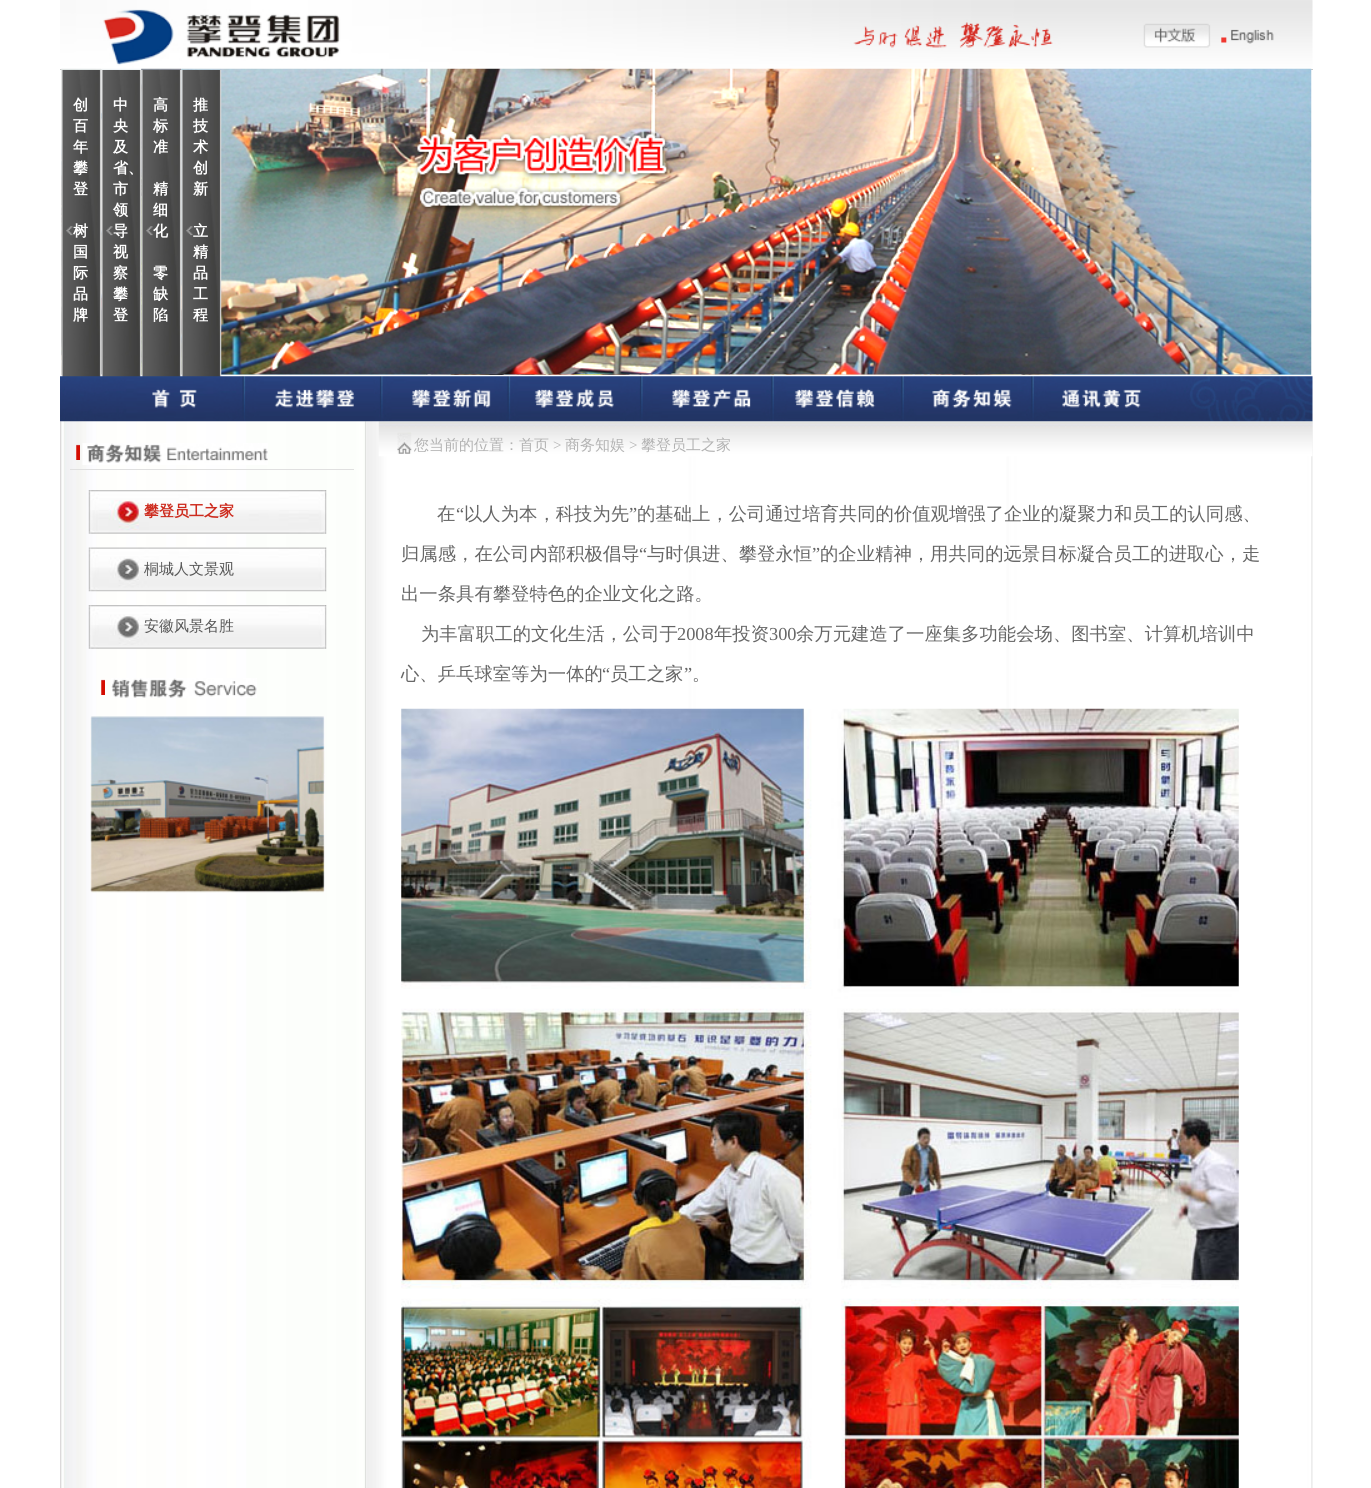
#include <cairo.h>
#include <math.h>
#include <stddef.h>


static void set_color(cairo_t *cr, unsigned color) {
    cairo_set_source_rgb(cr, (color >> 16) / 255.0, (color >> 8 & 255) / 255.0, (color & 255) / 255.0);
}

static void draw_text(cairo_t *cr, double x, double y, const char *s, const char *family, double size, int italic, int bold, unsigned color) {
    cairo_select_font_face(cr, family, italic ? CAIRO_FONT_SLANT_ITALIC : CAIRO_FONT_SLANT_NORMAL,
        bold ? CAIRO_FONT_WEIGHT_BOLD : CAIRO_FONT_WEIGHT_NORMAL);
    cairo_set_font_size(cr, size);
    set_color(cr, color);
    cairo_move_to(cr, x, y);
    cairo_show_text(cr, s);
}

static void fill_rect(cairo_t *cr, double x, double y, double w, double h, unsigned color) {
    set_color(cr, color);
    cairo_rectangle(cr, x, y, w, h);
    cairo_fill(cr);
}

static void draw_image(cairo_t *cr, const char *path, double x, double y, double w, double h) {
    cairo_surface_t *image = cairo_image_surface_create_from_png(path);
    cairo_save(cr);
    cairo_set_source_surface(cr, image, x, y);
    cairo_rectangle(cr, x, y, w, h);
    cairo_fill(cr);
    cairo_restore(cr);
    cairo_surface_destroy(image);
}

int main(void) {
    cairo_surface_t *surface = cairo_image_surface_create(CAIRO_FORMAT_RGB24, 1371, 1488);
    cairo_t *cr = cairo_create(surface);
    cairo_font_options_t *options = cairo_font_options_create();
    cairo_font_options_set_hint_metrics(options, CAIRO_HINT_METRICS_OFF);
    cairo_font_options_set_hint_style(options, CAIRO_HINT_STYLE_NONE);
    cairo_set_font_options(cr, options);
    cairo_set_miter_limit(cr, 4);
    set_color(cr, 0xFFFFFF);
    cairo_paint(cr);
    fill_rect(cr, 60, 69, 1253, 1, 0xC7C7C7);
    draw_image(cr, "assets/img2.png", 61, 68, 41, 307);
    draw_image(cr, "assets/img3.png", 61, 70, 41, 307);
    draw_image(cr, "assets/img4.png", 101, 68, 41, 307);
    draw_image(cr, "assets/img5.png", 101, 70, 41, 307);
    draw_image(cr, "assets/img6.png", 141, 68, 41, 307);
    draw_image(cr, "assets/img7.png", 141, 70, 41, 307);
    draw_image(cr, "assets/img8.png", 181, 68, 1131, 307);
    draw_image(cr, "assets/img1.png", 60, 0, 1253, 69);
    draw_text(cr, 73, 110, "创", "WenQuanYi Zen Hei", 15, 0, 1, 0xFFFFFF);
    draw_text(cr, 73, 131, "百", "WenQuanYi Zen Hei", 15, 0, 1, 0xFFFFFF);
    draw_text(cr, 73, 152, "年", "WenQuanYi Zen Hei", 15, 0, 1, 0xFFFFFF);
    draw_text(cr, 73, 173, "攀", "WenQuanYi Zen Hei", 15, 0, 1, 0xFFFFFF);
    draw_text(cr, 73, 194, "登", "WenQuanYi Zen Hei", 15, 0, 1, 0xFFFFFF);
    draw_text(cr, 73, 236, "树", "WenQuanYi Zen Hei", 15, 0, 1, 0xFFFFFF);
    draw_text(cr, 73, 257, "国", "WenQuanYi Zen Hei", 15, 0, 1, 0xFFFFFF);
    draw_text(cr, 73, 278, "际", "WenQuanYi Zen Hei", 15, 0, 1, 0xFFFFFF);
    draw_text(cr, 73, 299, "品", "WenQuanYi Zen Hei", 15, 0, 1, 0xFFFFFF);
    draw_text(cr, 73, 320, "牌", "WenQuanYi Zen Hei", 15, 0, 1, 0xFFFFFF);
    draw_text(cr, 113, 110, "中", "WenQuanYi Zen Hei", 15, 0, 1, 0xFFFFFF);
    draw_text(cr, 113, 131, "央", "WenQuanYi Zen Hei", 15, 0, 1, 0xFFFFFF);
    draw_text(cr, 113, 152, "及", "WenQuanYi Zen Hei", 15, 0, 1, 0xFFFFFF);
    draw_text(cr, 113, 173, "省、", "WenQuanYi Zen Hei", 15, 0, 1, 0xFFFFFF);
    draw_text(cr, 113, 194, "市", "WenQuanYi Zen Hei", 15, 0, 1, 0xFFFFFF);
    draw_text(cr, 113, 215, "领", "WenQuanYi Zen Hei", 15, 0, 1, 0xFFFFFF);
    draw_text(cr, 113, 236, "导", "WenQuanYi Zen Hei", 15, 0, 1, 0xFFFFFF);
    draw_text(cr, 113, 257, "视", "WenQuanYi Zen Hei", 15, 0, 1, 0xFFFFFF);
    draw_text(cr, 113, 278, "察", "WenQuanYi Zen Hei", 15, 0, 1, 0xFFFFFF);
    draw_text(cr, 113, 299, "攀", "WenQuanYi Zen Hei", 15, 0, 1, 0xFFFFFF);
    draw_text(cr, 113, 320, "登", "WenQuanYi Zen Hei", 15, 0, 1, 0xFFFFFF);
    draw_text(cr, 153, 110, "高", "WenQuanYi Zen Hei", 15, 0, 1, 0xFFFFFF);
    draw_text(cr, 153, 131, "标", "WenQuanYi Zen Hei", 15, 0, 1, 0xFFFFFF);
    draw_text(cr, 153, 152, "准", "WenQuanYi Zen Hei", 15, 0, 1, 0xFFFFFF);
    draw_text(cr, 153, 194, "精", "WenQuanYi Zen Hei", 15, 0, 1, 0xFFFFFF);
    draw_text(cr, 153, 215, "细", "WenQuanYi Zen Hei", 15, 0, 1, 0xFFFFFF);
    draw_text(cr, 153, 236, "化", "WenQuanYi Zen Hei", 15, 0, 1, 0xFFFFFF);
    draw_text(cr, 153, 278, "零", "WenQuanYi Zen Hei", 15, 0, 1, 0xFFFFFF);
    draw_text(cr, 153, 299, "缺", "WenQuanYi Zen Hei", 15, 0, 1, 0xFFFFFF);
    draw_text(cr, 153, 320, "陷", "WenQuanYi Zen Hei", 15, 0, 1, 0xFFFFFF);
    draw_image(cr, "assets/img9.png", 181, 70, 41, 307);
    draw_text(cr, 193, 110, "推", "WenQuanYi Zen Hei", 15, 0, 1, 0xFFFFFF);
    draw_text(cr, 193, 131, "技", "WenQuanYi Zen Hei", 15, 0, 1, 0xFFFFFF);
    draw_text(cr, 193, 152, "术", "WenQuanYi Zen Hei", 15, 0, 1, 0xFFFFFF);
    draw_text(cr, 193, 173, "创", "WenQuanYi Zen Hei", 15, 0, 1, 0xFFFFFF);
    draw_text(cr, 193, 194, "新", "WenQuanYi Zen Hei", 15, 0, 1, 0xFFFFFF);
    draw_text(cr, 193, 236, "立", "WenQuanYi Zen Hei", 15, 0, 1, 0xFFFFFF);
    draw_text(cr, 193, 257, "精", "WenQuanYi Zen Hei", 15, 0, 1, 0xFFFFFF);
    draw_text(cr, 193, 278, "品", "WenQuanYi Zen Hei", 15, 0, 1, 0xFFFFFF);
    draw_text(cr, 193, 299, "工", "WenQuanYi Zen Hei", 15, 0, 1, 0xFFFFFF);
    draw_text(cr, 193, 320, "程", "WenQuanYi Zen Hei", 15, 0, 1, 0xFFFFFF);
    draw_image(cr, "assets/img11.png", 60, 421, 307, 1067);
    draw_image(cr, "assets/img20.png", 366, 421, 947, 1067);
    draw_image(cr, "assets/img21.png", 378, 421, 935, 36);
    draw_image(cr, "assets/img10.png", 60, 376, 1253, 46);
    fill_rect(cr, 70, 469, 284, 1, 0xE0E0E0);
    draw_image(cr, "assets/img12.png", 76, 444, 4, 16);
    draw_image(cr, "assets/img13.png", 82, 443, 186, 22);
    draw_image(cr, "assets/img14.png", 88, 490, 239, 44);
    draw_text(cr, 144, 516, "攀登员工之家", "WenQuanYi Zen Hei", 15, 0, 1, 0xCD2B1E);
    draw_image(cr, "assets/img15.png", 88, 547, 239, 45);
    draw_text(cr, 144, 574, "桐城人文景观", "WenQuanYi Zen Hei Medium", 15, 0, 0, 0x565656);
    draw_image(cr, "assets/img16.png", 88, 605, 239, 44);
    draw_text(cr, 144, 631, "安徽风景名胜", "WenQuanYi Zen Hei Medium", 15, 0, 0, 0x565656);
    draw_image(cr, "assets/img17.png", 101, 679, 4, 16);
    draw_image(cr, "assets/img18.png", 111, 678, 146, 20);
    draw_image(cr, "assets/img19.png", 90, 716, 235, 177);
    draw_image(cr, "assets/img22.png", 397, 432, 15, 22);
    draw_text(cr, 414, 450, "您当前的位置：首页", "WenQuanYi Zen Hei Medium", 15, 0, 0, 0xB2B2B2);
    draw_text(cr, 553, 450, ">", "Liberation Serif", 15, 0, 0, 0xB2B2B2);
    draw_text(cr, 565, 450, "商务知娱", "WenQuanYi Zen Hei Medium", 15, 0, 0, 0xB2B2B2);
    draw_text(cr, 629, 450, ">", "Liberation Serif", 15, 0, 0, 0xB2B2B2);
    draw_text(cr, 641, 450, "攀登员工之家", "WenQuanYi Zen Hei Medium", 15, 0, 0, 0xB2B2B2);
    draw_text(cr, 437, 520, "在", "WenQuanYi Zen Hei Medium", 18.35, 0, 0, 0x666666);
    draw_text(cr, 456, 520, "“", "Liberation Serif", 18.35, 0, 0, 0x666666);
    draw_text(cr, 464, 520, "以人为本，科技为先", "WenQuanYi Zen Hei Medium", 18.35, 0, 0, 0x666666);
    draw_text(cr, 629, 520, "”", "Liberation Serif", 18.35, 0, 0, 0x666666);
    draw_text(cr, 637, 520, "的基础上，公司通过培育共同的价值观增强了企业的凝聚力和员工的认同感、", "WenQuanYi Zen Hei Medium", 18.35, 0, 0, 0x666666);
    draw_text(cr, 401, 560, "归属感，在公司内部积极倡导", "WenQuanYi Zen Hei Medium", 18.35, 0, 0, 0x666666);
    draw_text(cr, 639, 560, "“", "Liberation Serif", 18.35, 0, 0, 0x666666);
    draw_text(cr, 647, 560, "与时俱进、攀登永恒", "WenQuanYi Zen Hei Medium", 18.35, 0, 0, 0x666666);
    draw_text(cr, 812, 560, "”", "Liberation Serif", 18.35, 0, 0, 0x666666);
    draw_text(cr, 820, 560, "的企业精神，用共同的远景目标凝合员工的进取心，走", "WenQuanYi Zen Hei Medium", 18.35, 0, 0, 0x666666);
    draw_text(cr, 401, 600, "出一条具有攀登特色的企业文化之路。", "WenQuanYi Zen Hei Medium", 18.35, 0, 0, 0x666666);
    draw_text(cr, 421, 640, "为丰富职工的文化生活，公司于", "WenQuanYi Zen Hei Medium", 18.35, 0, 0, 0x666666);
    draw_text(cr, 677, 640, "2008", "Liberation Serif", 18.35, 0, 0, 0x666666);
    draw_text(cr, 714, 640, "年投资", "WenQuanYi Zen Hei Medium", 18.35, 0, 0, 0x666666);
    draw_text(cr, 769, 640, "300", "Liberation Serif", 18.35, 0, 0, 0x666666);
    draw_text(cr, 796, 640, "余万元建造了一座集多功能会场、图书室、计算机培训中", "WenQuanYi Zen Hei Medium", 18.35, 0, 0, 0x666666);
    draw_text(cr, 401, 680, "心、乒乓球室等为一体的", "WenQuanYi Zen Hei Medium", 18.35, 0, 0, 0x666666);
    draw_text(cr, 602, 680, "“", "Liberation Serif", 18.35, 0, 0, 0x666666);
    draw_text(cr, 610, 680, "员工之家", "WenQuanYi Zen Hei Medium", 18.35, 0, 0, 0x666666);
    draw_text(cr, 684, 680, "”", "Liberation Serif", 18.35, 0, 0, 0x666666);
    draw_text(cr, 692, 680, "。", "WenQuanYi Zen Hei Medium", 18.35, 0, 0, 0x666666);
    draw_image(cr, "assets/img23.png", 401, 708, 838, 780);
    cairo_surface_write_to_png(surface, "output.png");
    cairo_font_options_destroy(options);
    cairo_destroy(cr);
    cairo_surface_destroy(surface);
    return 0;
}
